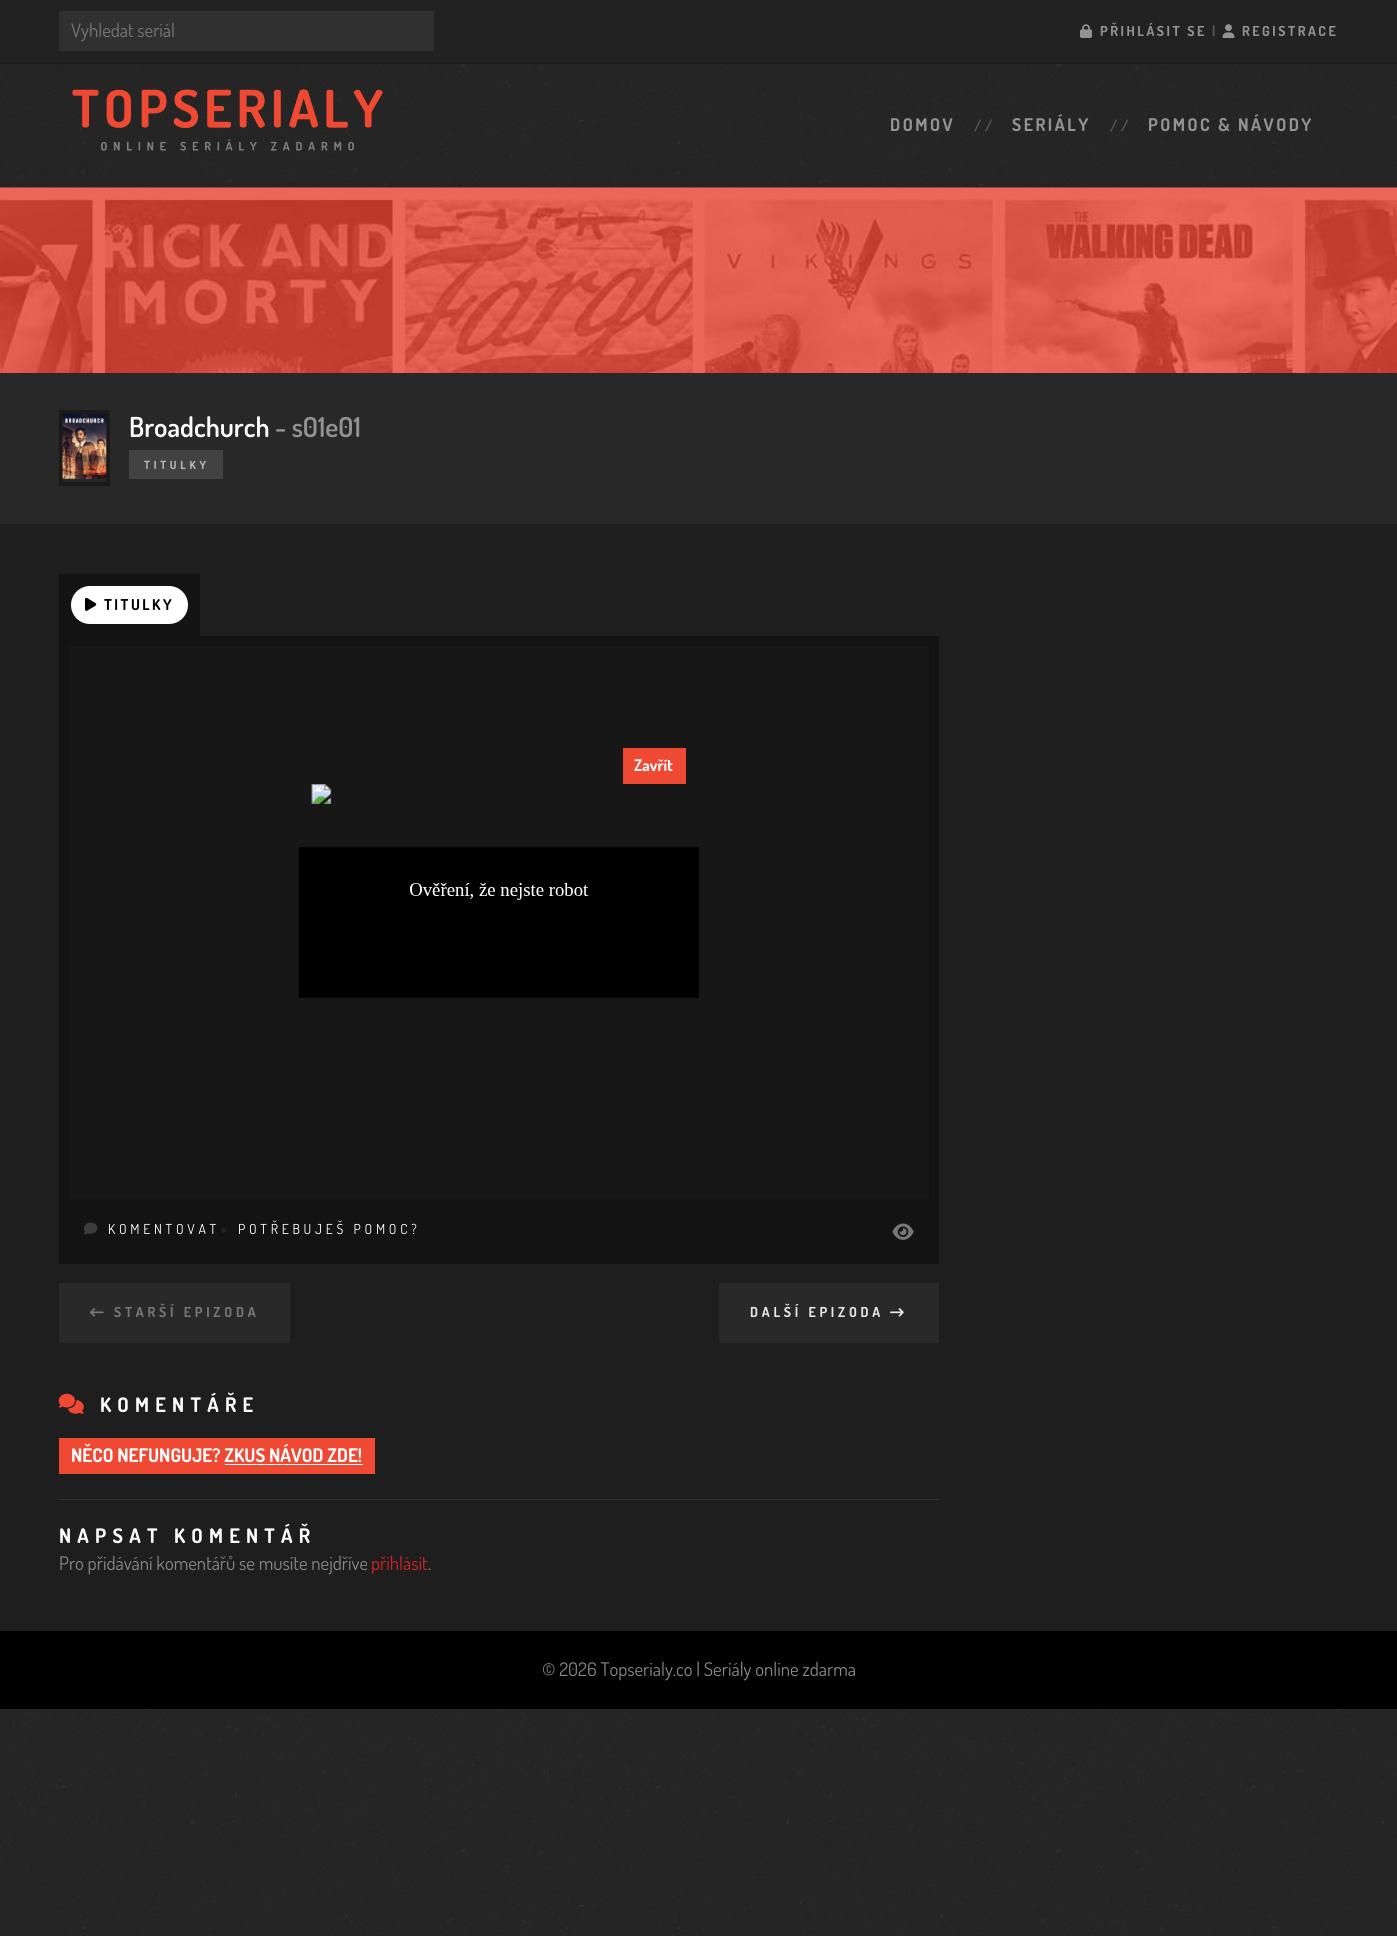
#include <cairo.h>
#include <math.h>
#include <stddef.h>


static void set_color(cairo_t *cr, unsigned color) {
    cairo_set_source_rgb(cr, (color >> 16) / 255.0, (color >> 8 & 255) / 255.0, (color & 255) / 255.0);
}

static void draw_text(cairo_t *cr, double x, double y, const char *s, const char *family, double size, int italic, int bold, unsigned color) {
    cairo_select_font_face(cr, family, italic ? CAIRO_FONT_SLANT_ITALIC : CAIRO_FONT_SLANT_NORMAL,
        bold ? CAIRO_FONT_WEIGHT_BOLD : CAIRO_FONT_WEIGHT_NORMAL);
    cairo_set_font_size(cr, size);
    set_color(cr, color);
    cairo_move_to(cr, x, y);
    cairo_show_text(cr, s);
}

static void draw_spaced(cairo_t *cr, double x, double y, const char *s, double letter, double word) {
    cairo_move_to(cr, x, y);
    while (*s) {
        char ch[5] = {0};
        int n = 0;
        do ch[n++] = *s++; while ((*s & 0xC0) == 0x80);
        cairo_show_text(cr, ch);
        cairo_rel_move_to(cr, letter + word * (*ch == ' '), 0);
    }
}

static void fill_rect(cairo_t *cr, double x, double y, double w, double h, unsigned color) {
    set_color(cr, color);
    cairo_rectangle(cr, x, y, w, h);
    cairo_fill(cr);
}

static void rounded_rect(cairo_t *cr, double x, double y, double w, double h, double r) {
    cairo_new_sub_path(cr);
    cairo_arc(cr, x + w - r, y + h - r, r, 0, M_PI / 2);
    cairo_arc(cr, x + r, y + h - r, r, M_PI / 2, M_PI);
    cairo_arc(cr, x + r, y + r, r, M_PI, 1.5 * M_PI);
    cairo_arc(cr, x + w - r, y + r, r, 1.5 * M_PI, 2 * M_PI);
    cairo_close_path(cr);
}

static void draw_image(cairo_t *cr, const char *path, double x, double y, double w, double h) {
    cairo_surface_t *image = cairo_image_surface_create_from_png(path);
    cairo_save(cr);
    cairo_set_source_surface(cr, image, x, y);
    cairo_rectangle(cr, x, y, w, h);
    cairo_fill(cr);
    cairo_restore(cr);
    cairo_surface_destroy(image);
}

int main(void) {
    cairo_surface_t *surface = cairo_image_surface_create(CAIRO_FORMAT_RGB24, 1397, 1936);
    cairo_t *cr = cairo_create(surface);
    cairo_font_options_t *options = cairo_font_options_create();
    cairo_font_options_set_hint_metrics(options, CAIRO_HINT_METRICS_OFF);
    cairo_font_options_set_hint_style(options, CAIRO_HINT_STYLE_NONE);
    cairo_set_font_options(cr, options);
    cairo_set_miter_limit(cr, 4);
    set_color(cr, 0xFFFFFF);
    cairo_paint(cr);
    draw_image(cr, "assets/img1.png", 0, 64, 1397, 1872);
    fill_rect(cr, 0, 0, 1397, 63, 0x222222);
    fill_rect(cr, 0, 63, 1397, 1, 0x1B1B1B);
    fill_rect(cr, 59, 11, 375, 40, 0x303030);
    draw_text(cr, 71, 37, "Vyhledat seriál", "Dosis", 18.75, 0, 0, 0x777777);
    draw_image(cr, "assets/img2.png", 1080, 24, 12, 14);
    cairo_select_font_face(cr, "Dosis", CAIRO_FONT_SLANT_NORMAL, CAIRO_FONT_WEIGHT_BOLD);
    cairo_set_font_size(cr, 13.75);
    set_color(cr, 0x939393);
    draw_spaced(cr, 1100, 36, "PŘIHLÁSIT SE", 2.5, 0);
    set_color(cr, 0x565656);
    draw_spaced(cr, 1212, 36, "|", 2.5, 0);
    draw_image(cr, "assets/img3.png", 1222, 24, 13, 14);
    set_color(cr, 0x939393);
    draw_spaced(cr, 1242, 36, "REGISTRACE", 2.5, 0);
    draw_image(cr, "assets/img4.png", 72, 89, 311, 62);
    cairo_set_font_size(cr, 17.5);
    draw_spaced(cr, 890, 131, "DOMOV", 2.5, 0);
    cairo_set_font_size(cr, 15);
    set_color(cr, 0x565656);
    draw_spaced(cr, 974, 131, "//", 3.75, 0);
    cairo_set_font_size(cr, 17.5);
    set_color(cr, 0x939393);
    draw_spaced(cr, 1012, 131, "SERIÁLY", 2.5, 0);
    cairo_set_font_size(cr, 15);
    set_color(cr, 0x565656);
    draw_spaced(cr, 1110, 131, "//", 3.75, 0);
    cairo_set_font_size(cr, 17.5);
    set_color(cr, 0x939393);
    draw_spaced(cr, 1148, 131, "POMOC & NÁVODY", 2.5, 0);
    fill_rect(cr, 0, 524, 1397, 1107, 0x1E1E1E);
    fill_rect(cr, 0, 373, 1397, 151, 0x282828);
    cairo_rectangle(cr, 61, 412, 47, 72);
    set_color(cr, 0x1A1A1A);
    cairo_set_line_width(cr, 4);
    cairo_stroke(cr);
    draw_image(cr, "assets/img5.png", 62, 413, 45, 66);
    draw_text(cr, 129, 437, "Broadchurch", "Dosis SemiBold", 27.5, 0, 0, 0xFFFFFF);
    draw_text(cr, 275, 437, "- s01e01", "Dosis SemiBold", 27.5, 0, 0, 0x939393);
    fill_rect(cr, 129, 450, 94, 29, 0x424242);
    cairo_select_font_face(cr, "Dosis", CAIRO_FONT_SLANT_NORMAL, CAIRO_FONT_WEIGHT_BOLD);
    cairo_set_font_size(cr, 11.25);
    set_color(cr, 0xBBBBBB);
    draw_spaced(cr, 144, 469, "TITULKY", 3.75, 0);
    fill_rect(cr, 59, 574, 141, 62, 0x131313);
    set_color(cr, 0xFFFFFF);
    rounded_rect(cr, 71, 586, 117, 38, 19);
    cairo_fill(cr);
    draw_image(cr, "assets/img6.png", 85, 597, 12, 14);
    cairo_set_font_size(cr, 15);
    set_color(cr, 0x000000);
    draw_spaced(cr, 104, 610, "TITULKY", 2.5, 0);
    fill_rect(cr, 69, 646, 860, 553, 0x171717);
    fill_rect(cr, 69, 636, 860, 10, 0x131313);
    fill_rect(cr, 929, 636, 10, 563, 0x131313);
    fill_rect(cr, 59, 636, 10, 563, 0x131313);
    fill_rect(cr, 623, 748, 63, 36, 0xF04933);
    draw_text(cr, 634, 771, "Zavřít", "Dosis", 16, 0, 1, 0xFFFFFF);
    draw_image(cr, "assets/img7.png", 311, 784, 21, 20);
    draw_image(cr, "assets/img8.png", 298, 847, 401, 151);
    fill_rect(cr, 59, 1199, 880, 65, 0x131313);
    draw_image(cr, "assets/img9.png", 83, 1222, 15, 13);
    cairo_select_font_face(cr, "Dosis", CAIRO_FONT_SLANT_NORMAL, CAIRO_FONT_WEIGHT_NORMAL);
    cairo_set_font_size(cr, 13.75);
    set_color(cr, 0xFFFFFF);
    draw_spaced(cr, 108, 1234, "KOMENTOVAT", 3.75, 0);
    set_color(cr, 0x222222);
    cairo_new_path(cr);
    cairo_arc(cr, 223.5, 1230.5, 2.5, 0, 2 * M_PI);
    cairo_fill(cr);
    set_color(cr, 0xFFFFFF);
    draw_spaced(cr, 238, 1234, "POTŘEBUJEŠ POMOC?", 3.75, 0);
    draw_image(cr, "assets/img10.png", 892, 1223, 22, 17);
    set_color(cr, 0x292929);
    rounded_rect(cr, 59, 1283, 231, 60, 1);
    cairo_fill(cr);
    draw_image(cr, "assets/img11.png", 90, 1308, 14, 9);
    cairo_select_font_face(cr, "Dosis", CAIRO_FONT_SLANT_NORMAL, CAIRO_FONT_WEIGHT_BOLD);
    set_color(cr, 0x777777);
    draw_spaced(cr, 114, 1317, "STARŠÍ EPIZODA", 3.75, 0);
    set_color(cr, 0x292929);
    rounded_rect(cr, 719, 1283, 220, 60, 1);
    cairo_fill(cr);
    set_color(cr, 0xE7E7E7);
    draw_spaced(cr, 750, 1317, "DALŠÍ EPIZODA", 3.75, 0);
    draw_image(cr, "assets/img12.png", 890, 1308, 14, 9);
    draw_image(cr, "assets/img13.png", 58, 1393, 26, 21);
    cairo_set_font_size(cr, 20);
    set_color(cr, 0xFFFFFF);
    draw_spaced(cr, 100, 1412, "KOMENTÁŘE", 6.25, 0);
    fill_rect(cr, 59, 1438, 316, 36, 0xF04933);
    draw_text(cr, 71, 1462, "NĚCO NEFUNGUJE? ZKUS NÁVOD ZDE!", "Dosis", 18.75, 0, 1, 0xFFFFFF);
    fill_rect(cr, 225, 1464, 138, 1, 0xFFFFFF);
    fill_rect(cr, 59, 1499, 880, 1, 0x333333);
    cairo_set_font_size(cr, 20);
    set_color(cr, 0xFFFFFF);
    draw_spaced(cr, 59, 1543, "NAPSAT KOMENTÁŘ", 6.25, 0);
    draw_text(cr, 59, 1570, "Pro přidávání komentářů se musíte nejdříve", "Dosis", 18.75, 0, 0, 0x888888);
    draw_text(cr, 371, 1570, "přihlásit", "Dosis", 18.75, 0, 0, 0xD32323);
    draw_text(cr, 428, 1570, ".", "Dosis", 18.75, 0, 0, 0x888888);
    fill_rect(cr, 0, 1631, 1397, 78, 0x000000);
    draw_text(cr, 542, 1676, "© 2026 Topserialy.co | Seriály online zdarma", "Dosis", 18.75, 0, 0, 0x888888);
    cairo_surface_write_to_png(surface, "output.png");
    cairo_font_options_destroy(options);
    cairo_destroy(cr);
    cairo_surface_destroy(surface);
    return 0;
}
